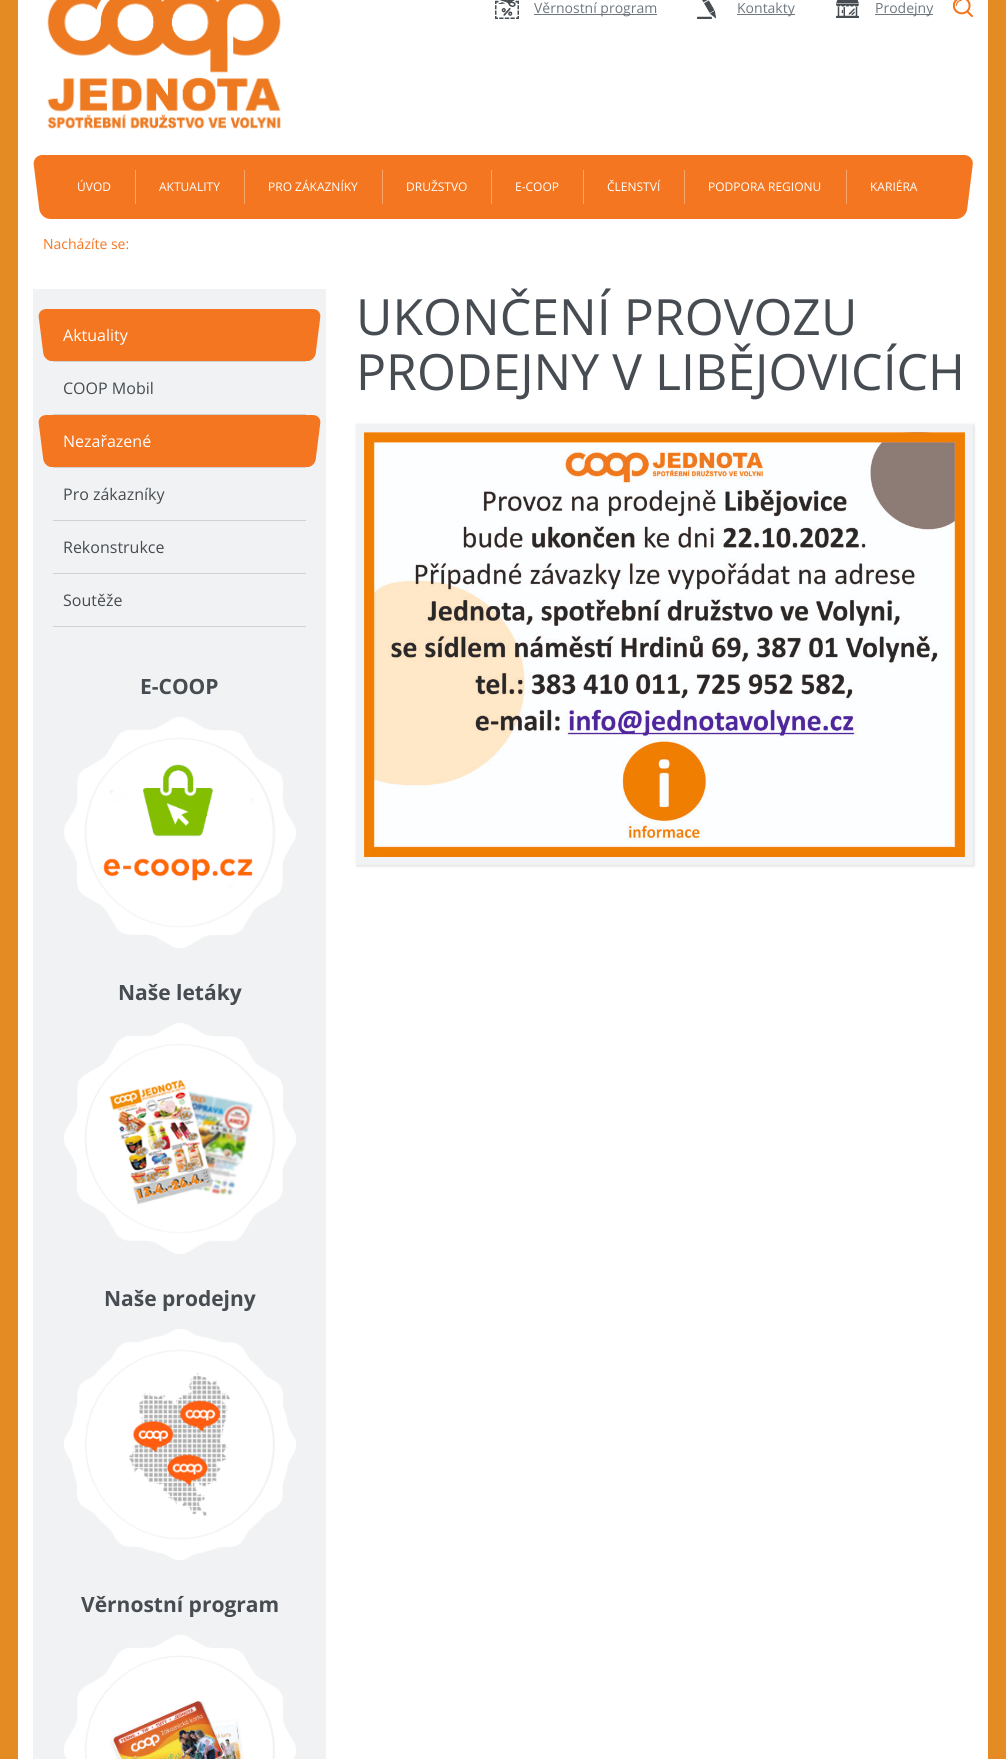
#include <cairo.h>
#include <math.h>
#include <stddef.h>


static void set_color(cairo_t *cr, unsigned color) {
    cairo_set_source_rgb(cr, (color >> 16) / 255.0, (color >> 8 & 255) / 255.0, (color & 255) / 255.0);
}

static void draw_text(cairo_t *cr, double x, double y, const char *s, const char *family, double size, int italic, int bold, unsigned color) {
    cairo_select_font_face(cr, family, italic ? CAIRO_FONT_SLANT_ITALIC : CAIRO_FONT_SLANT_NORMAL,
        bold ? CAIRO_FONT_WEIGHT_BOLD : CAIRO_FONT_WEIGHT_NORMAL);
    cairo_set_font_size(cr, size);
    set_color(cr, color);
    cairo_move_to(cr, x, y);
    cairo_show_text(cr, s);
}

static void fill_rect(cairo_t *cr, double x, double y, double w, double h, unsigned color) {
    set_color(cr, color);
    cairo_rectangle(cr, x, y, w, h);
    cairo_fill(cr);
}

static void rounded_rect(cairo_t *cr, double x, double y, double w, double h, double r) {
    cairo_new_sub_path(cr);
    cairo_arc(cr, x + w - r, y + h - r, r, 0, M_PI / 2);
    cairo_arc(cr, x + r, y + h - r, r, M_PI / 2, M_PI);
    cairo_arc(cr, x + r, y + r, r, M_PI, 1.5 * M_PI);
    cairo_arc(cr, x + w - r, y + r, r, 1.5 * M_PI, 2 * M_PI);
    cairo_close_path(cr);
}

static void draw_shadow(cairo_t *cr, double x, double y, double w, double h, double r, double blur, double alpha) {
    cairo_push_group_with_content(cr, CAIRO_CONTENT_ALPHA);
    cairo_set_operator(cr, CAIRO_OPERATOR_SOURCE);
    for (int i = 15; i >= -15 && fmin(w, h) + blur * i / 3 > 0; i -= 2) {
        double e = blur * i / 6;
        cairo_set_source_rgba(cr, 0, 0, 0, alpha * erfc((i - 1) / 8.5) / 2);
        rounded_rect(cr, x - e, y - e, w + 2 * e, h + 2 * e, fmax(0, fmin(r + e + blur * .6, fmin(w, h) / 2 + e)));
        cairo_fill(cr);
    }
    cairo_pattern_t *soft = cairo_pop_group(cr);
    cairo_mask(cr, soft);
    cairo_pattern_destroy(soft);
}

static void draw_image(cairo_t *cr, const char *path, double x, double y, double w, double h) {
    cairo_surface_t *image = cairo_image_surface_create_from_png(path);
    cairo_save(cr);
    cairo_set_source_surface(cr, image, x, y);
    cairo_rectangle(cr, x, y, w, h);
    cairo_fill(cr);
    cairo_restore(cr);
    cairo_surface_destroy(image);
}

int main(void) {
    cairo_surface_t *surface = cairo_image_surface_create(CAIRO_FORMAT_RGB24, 1006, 1759);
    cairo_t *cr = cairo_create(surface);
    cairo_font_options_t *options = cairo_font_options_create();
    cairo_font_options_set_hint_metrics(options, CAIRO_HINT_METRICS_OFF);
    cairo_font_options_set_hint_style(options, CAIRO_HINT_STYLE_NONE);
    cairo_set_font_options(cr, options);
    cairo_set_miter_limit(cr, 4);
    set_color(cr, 0xE48B23);
    cairo_paint(cr);
    fill_rect(cr, 18, 0, 970, 1759, 0xFFFFFF);
    draw_image(cr, "assets/img1.png", 47, 0, 234, 129);
    draw_image(cr, "assets/img2.png", 495, 0, 24, 19);
    fill_rect(cr, 534, 14, 123, 1, 0x6F787F);
    draw_text(cr, 534, 13, "Věrnostní program", "Open Sans", 14, 0, 0, 0x6F787F);
    draw_image(cr, "assets/img3.png", 697, 0, 19, 19);
    fill_rect(cr, 737, 14, 58, 1, 0x6F787F);
    draw_text(cr, 737, 13, "Kontakty", "Open Sans", 14, 0, 0, 0x6F787F);
    draw_image(cr, "assets/img4.png", 836, 0, 23, 18);
    fill_rect(cr, 875, 14, 58, 1, 0x6F787F);
    draw_text(cr, 875, 13, "Prodejny", "Open Sans", 14, 0, 0, 0x6F787F);
    draw_image(cr, "assets/img5.png", 953, 0, 20, 17);
    fill_rect(cr, 53, 155, 900, 64, 0xF47621);
    draw_image(cr, "assets/img6.png", 33, 155, 20, 64);
    draw_text(cr, 77, 191, "ÚVOD", "Open Sans", 12, 0, 0, 0xFFFFFF);
    fill_rect(cr, 135, 170, 1, 34, 0xF8A66E);
    draw_text(cr, 159, 191, "AKTUALITY", "Open Sans", 12, 0, 0, 0xFFFFFF);
    fill_rect(cr, 244, 170, 1, 34, 0xF8A66E);
    draw_text(cr, 268, 191, "PRO ZÁKAZNÍKY", "Open Sans", 12, 0, 0, 0xFFFFFF);
    fill_rect(cr, 382, 170, 1, 34, 0xF8A66E);
    draw_text(cr, 406, 191, "DRUŽSTVO", "Open Sans", 12, 0, 0, 0xFFFFFF);
    fill_rect(cr, 491, 170, 1, 34, 0xF8A66E);
    draw_text(cr, 515, 191, "E-COOP", "Open Sans", 12, 0, 0, 0xFFFFFF);
    fill_rect(cr, 583, 170, 1, 34, 0xF8A66E);
    draw_text(cr, 607, 191, "ČLENSTVÍ", "Open Sans", 12, 0, 0, 0xFFFFFF);
    fill_rect(cr, 684, 170, 1, 34, 0xF8A66E);
    draw_text(cr, 708, 191, "PODPORA REGIONU", "Open Sans", 12, 0, 0, 0xFFFFFF);
    fill_rect(cr, 846, 170, 1, 34, 0xF8A66E);
    draw_text(cr, 870, 191, "KARIÉRA", "Open Sans", 12, 0, 0, 0xFFFFFF);
    draw_image(cr, "assets/img7.png", 953, 155, 20, 64);
    draw_text(cr, 43, 249, "Nacházíte se:", "Open Sans", 14, 0, 0, 0xF47621);
    fill_rect(cr, 33, 289, 293, 1470, 0xF1F2F3);
    fill_rect(cr, 53, 361, 253, 1, 0xCFD1D3);
    fill_rect(cr, 53, 309, 253, 52, 0xF47621);
    draw_image(cr, "assets/img8.png", 38, 309, 15, 52);
    draw_text(cr, 63, 341, "Aktuality", "Open Sans", 16, 0, 0, 0xFFFFFF);
    draw_image(cr, "assets/img9.png", 306, 309, 15, 52);
    fill_rect(cr, 53, 414, 253, 1, 0xCFD1D3);
    draw_text(cr, 63, 394, "COOP Mobil", "Open Sans", 16, 0, 0, 0x464C51);
    fill_rect(cr, 53, 467, 253, 1, 0xCFD1D3);
    fill_rect(cr, 53, 415, 253, 52, 0xF47621);
    draw_image(cr, "assets/img8.png", 38, 415, 15, 52);
    draw_text(cr, 63, 447, "Nezařazené", "Open Sans", 16, 0, 0, 0xFFFFFF);
    draw_image(cr, "assets/img9.png", 306, 415, 15, 52);
    fill_rect(cr, 53, 520, 253, 1, 0xCFD1D3);
    draw_text(cr, 63, 500, "Pro zákazníky", "Open Sans", 16, 0, 0, 0x464C51);
    fill_rect(cr, 53, 573, 253, 1, 0xCFD1D3);
    draw_text(cr, 63, 553, "Rekonstrukce", "Open Sans", 16, 0, 0, 0x464C51);
    fill_rect(cr, 53, 626, 253, 1, 0xCFD1D3);
    draw_text(cr, 63, 606, "Soutěže", "Open Sans", 16, 0, 0, 0x464C51);
    draw_text(cr, 140, 694, "E-COOP", "Open Sans", 21, 0, 1, 0x464C51);
    draw_image(cr, "assets/img10.png", 64, 717, 232, 231);
    draw_text(cr, 118, 1000, "Naše letáky", "Open Sans", 21, 0, 1, 0x464C51);
    draw_image(cr, "assets/img11.png", 64, 1023, 232, 231);
    draw_text(cr, 104, 1306, "Naše prodejny", "Open Sans", 21, 0, 1, 0x464C51);
    draw_image(cr, "assets/img12.png", 64, 1329, 232, 231);
    draw_text(cr, 81, 1612, "Věrnostní program", "Open Sans", 21, 0, 1, 0x464C51);
    draw_image(cr, "assets/img13.png", 64, 1635, 232, 124);
    draw_text(cr, 356, 335, "UKONČENÍ PROVOZU", "Open Sans", 50, 0, 0, 0x464C51);
    draw_text(cr, 356, 390, "PRODEJNY V LIBĚJOVICÍCH", "Open Sans", 50, 0, 0, 0x464C51);
    set_color(cr, 0x000000);
    draw_shadow(cr, 357, 425, 617, 441, 0, 1.5, 0.15);
    cairo_rectangle(cr, 360, 428, 609, 433);
    set_color(cr, 0xF1F2F3);
    cairo_set_line_width(cr, 8);
    cairo_stroke(cr);
    draw_image(cr, "assets/img14.png", 364, 432, 601, 425);
    cairo_surface_write_to_png(surface, "output.png");
    cairo_font_options_destroy(options);
    cairo_destroy(cr);
    cairo_surface_destroy(surface);
    return 0;
}
